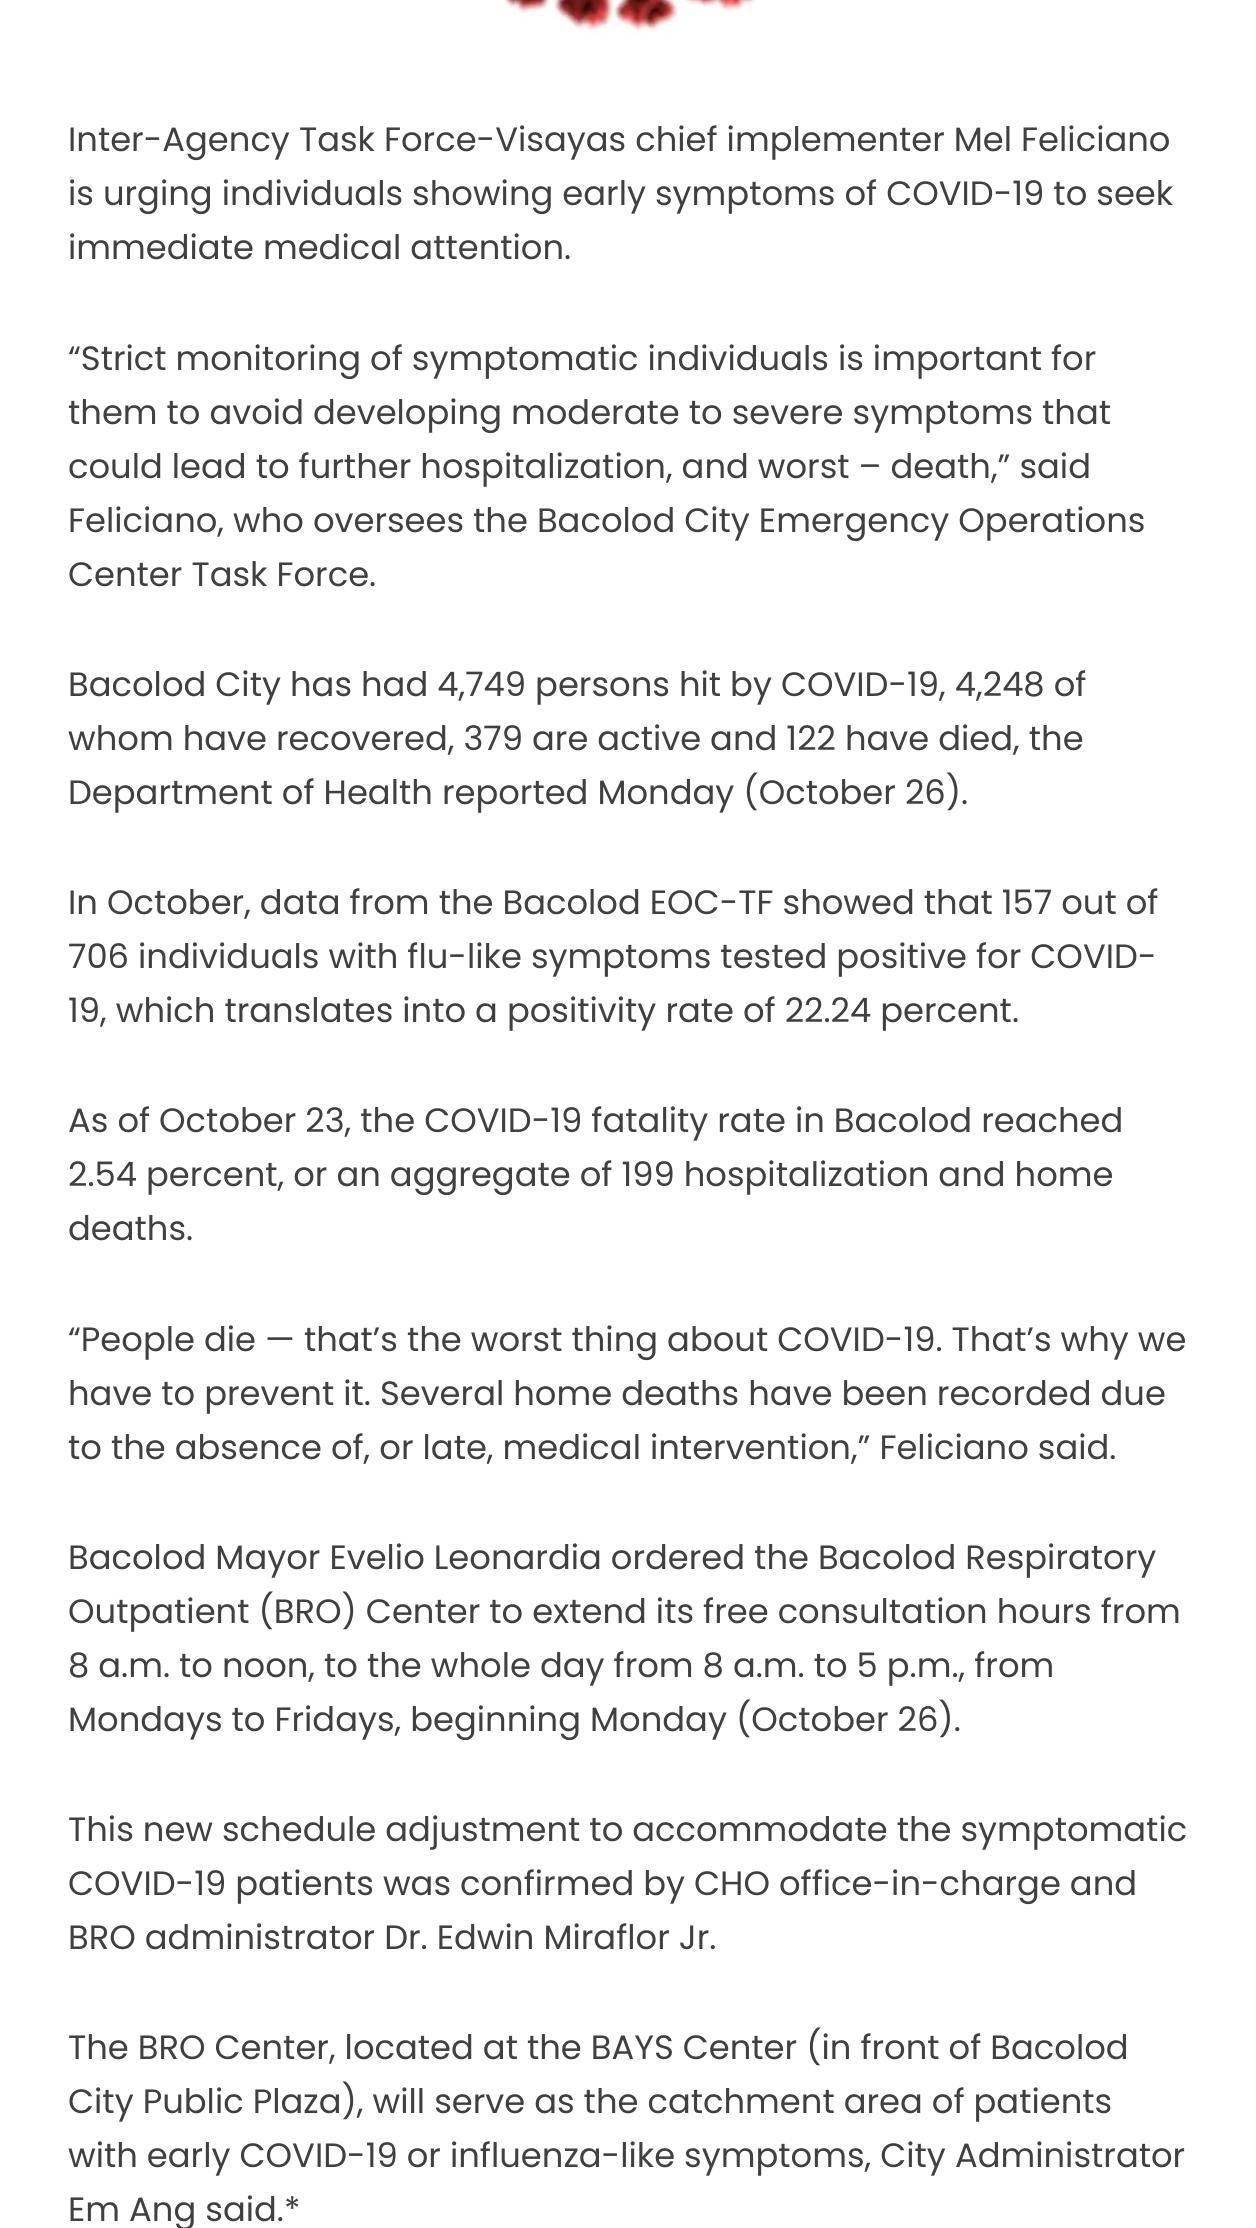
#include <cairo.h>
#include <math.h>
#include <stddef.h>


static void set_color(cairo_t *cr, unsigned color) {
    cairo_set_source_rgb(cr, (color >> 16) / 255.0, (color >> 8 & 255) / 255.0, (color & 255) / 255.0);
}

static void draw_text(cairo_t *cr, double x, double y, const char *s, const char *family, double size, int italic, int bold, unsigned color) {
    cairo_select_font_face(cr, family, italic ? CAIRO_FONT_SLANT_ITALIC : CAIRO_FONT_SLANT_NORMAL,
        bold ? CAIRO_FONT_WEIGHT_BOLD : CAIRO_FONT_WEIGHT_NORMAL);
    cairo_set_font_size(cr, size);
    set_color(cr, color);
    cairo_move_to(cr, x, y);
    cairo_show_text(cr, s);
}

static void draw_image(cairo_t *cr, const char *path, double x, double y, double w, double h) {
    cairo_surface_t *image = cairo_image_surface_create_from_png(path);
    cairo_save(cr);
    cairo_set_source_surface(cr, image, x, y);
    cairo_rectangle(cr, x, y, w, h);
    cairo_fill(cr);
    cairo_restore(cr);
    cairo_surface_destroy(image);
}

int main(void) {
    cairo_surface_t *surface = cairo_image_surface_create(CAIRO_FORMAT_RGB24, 1256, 2228);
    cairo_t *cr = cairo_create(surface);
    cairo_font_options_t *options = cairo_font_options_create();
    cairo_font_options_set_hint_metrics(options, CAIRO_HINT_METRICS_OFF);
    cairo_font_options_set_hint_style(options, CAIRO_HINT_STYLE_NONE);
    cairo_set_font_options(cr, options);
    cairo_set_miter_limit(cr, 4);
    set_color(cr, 0xFFFFFF);
    cairo_paint(cr);
    draw_image(cr, "assets/img1.png", 499, 0, 258, 35);
    draw_text(cr, 68, 151, "Inter-Agency Task Force-Visayas chief implementer Mel Feliciano", "Poppins", 33.75, 0, 0, 0x404040);
    draw_text(cr, 68, 205, "is urging individuals showing early symptoms of COVID-19 to seek", "Poppins", 33.75, 0, 0, 0x404040);
    draw_text(cr, 68, 259, "immediate medical attention.", "Poppins", 33.75, 0, 0, 0x404040);
    draw_text(cr, 68, 370, "“Strict monitoring of symptomatic individuals is important for", "Poppins", 33.75, 0, 0, 0x404040);
    draw_text(cr, 68, 424, "them to avoid developing moderate to severe symptoms that", "Poppins", 33.75, 0, 0, 0x404040);
    draw_text(cr, 68, 478, "could lead to further hospitalization, and worst – death,” said", "Poppins", 33.75, 0, 0, 0x404040);
    draw_text(cr, 68, 532, "Feliciano, who oversees the Bacolod City Emergency Operations", "Poppins", 33.75, 0, 0, 0x404040);
    draw_text(cr, 68, 586, "Center Task Force.", "Poppins", 33.75, 0, 0, 0x404040);
    draw_text(cr, 68, 696, "Bacolod City has had 4,749 persons hit by COVID-19, 4,248 of", "Poppins", 33.75, 0, 0, 0x404040);
    draw_text(cr, 68, 750, "whom have recovered, 379 are active and 122 have died, the", "Poppins", 33.75, 0, 0, 0x404040);
    draw_text(cr, 68, 804, "Department of Health reported Monday (October 26).", "Poppins", 33.75, 0, 0, 0x404040);
    draw_text(cr, 68, 914, "In October, data from the Bacolod EOC-TF showed that 157 out of", "Poppins", 33.75, 0, 0, 0x404040);
    draw_text(cr, 68, 968, "706 individuals with flu-like symptoms tested positive for COVID-", "Poppins", 33.75, 0, 0, 0x404040);
    draw_text(cr, 68, 1022, "19, which translates into a positivity rate of 22.24 percent.", "Poppins", 33.75, 0, 0, 0x404040);
    draw_text(cr, 68, 1132, "As of October 23, the COVID-19 fatality rate in Bacolod reached", "Poppins", 33.75, 0, 0, 0x404040);
    draw_text(cr, 68, 1186, "2.54 percent, or an aggregate of 199 hospitalization and home", "Poppins", 33.75, 0, 0, 0x404040);
    draw_text(cr, 68, 1240, "deaths.", "Poppins", 33.75, 0, 0, 0x404040);
    draw_text(cr, 68, 1351, "“People die — that’s the worst thing about COVID-19. That’s why we", "Poppins", 33.75, 0, 0, 0x404040);
    draw_text(cr, 68, 1405, "have to prevent it. Several home deaths have been recorded due", "Poppins", 33.75, 0, 0, 0x404040);
    draw_text(cr, 68, 1459, "to the absence of, or late, medical intervention,” Feliciano said.", "Poppins", 33.75, 0, 0, 0x404040);
    draw_text(cr, 68, 1569, "Bacolod Mayor Evelio Leonardia ordered the Bacolod Respiratory", "Poppins", 33.75, 0, 0, 0x404040);
    draw_text(cr, 68, 1623, "Outpatient (BRO) Center to extend its free consultation hours from", "Poppins", 33.75, 0, 0, 0x404040);
    draw_text(cr, 68, 1677, "8 a.m. to noon, to the whole day from 8 a.m. to 5 p.m., from", "Poppins", 33.75, 0, 0, 0x404040);
    draw_text(cr, 68, 1731, "Mondays to Fridays, beginning Monday (October 26).", "Poppins", 33.75, 0, 0, 0x404040);
    draw_text(cr, 68, 1841, "This new schedule adjustment to accommodate the symptomatic", "Poppins", 33.75, 0, 0, 0x404040);
    draw_text(cr, 68, 1895, "COVID-19 patients was confirmed by CHO office-in-charge and", "Poppins", 33.75, 0, 0, 0x404040);
    draw_text(cr, 68, 1949, "BRO administrator Dr. Edwin Miraflor Jr.", "Poppins", 33.75, 0, 0, 0x404040);
    draw_text(cr, 68, 2059, "The BRO Center, located at the BAYS Center (in front of Bacolod", "Poppins", 33.75, 0, 0, 0x404040);
    draw_text(cr, 68, 2113, "City Public Plaza), will serve as the catchment area of patients", "Poppins", 33.75, 0, 0, 0x404040);
    draw_text(cr, 68, 2167, "with early COVID-19 or influenza-like symptoms, City Administrator", "Poppins", 33.75, 0, 0, 0x404040);
    draw_text(cr, 68, 2221, "Em Ang said.*", "Poppins", 33.75, 0, 0, 0x404040);
    cairo_surface_write_to_png(surface, "output.png");
    cairo_font_options_destroy(options);
    cairo_destroy(cr);
    cairo_surface_destroy(surface);
    return 0;
}
